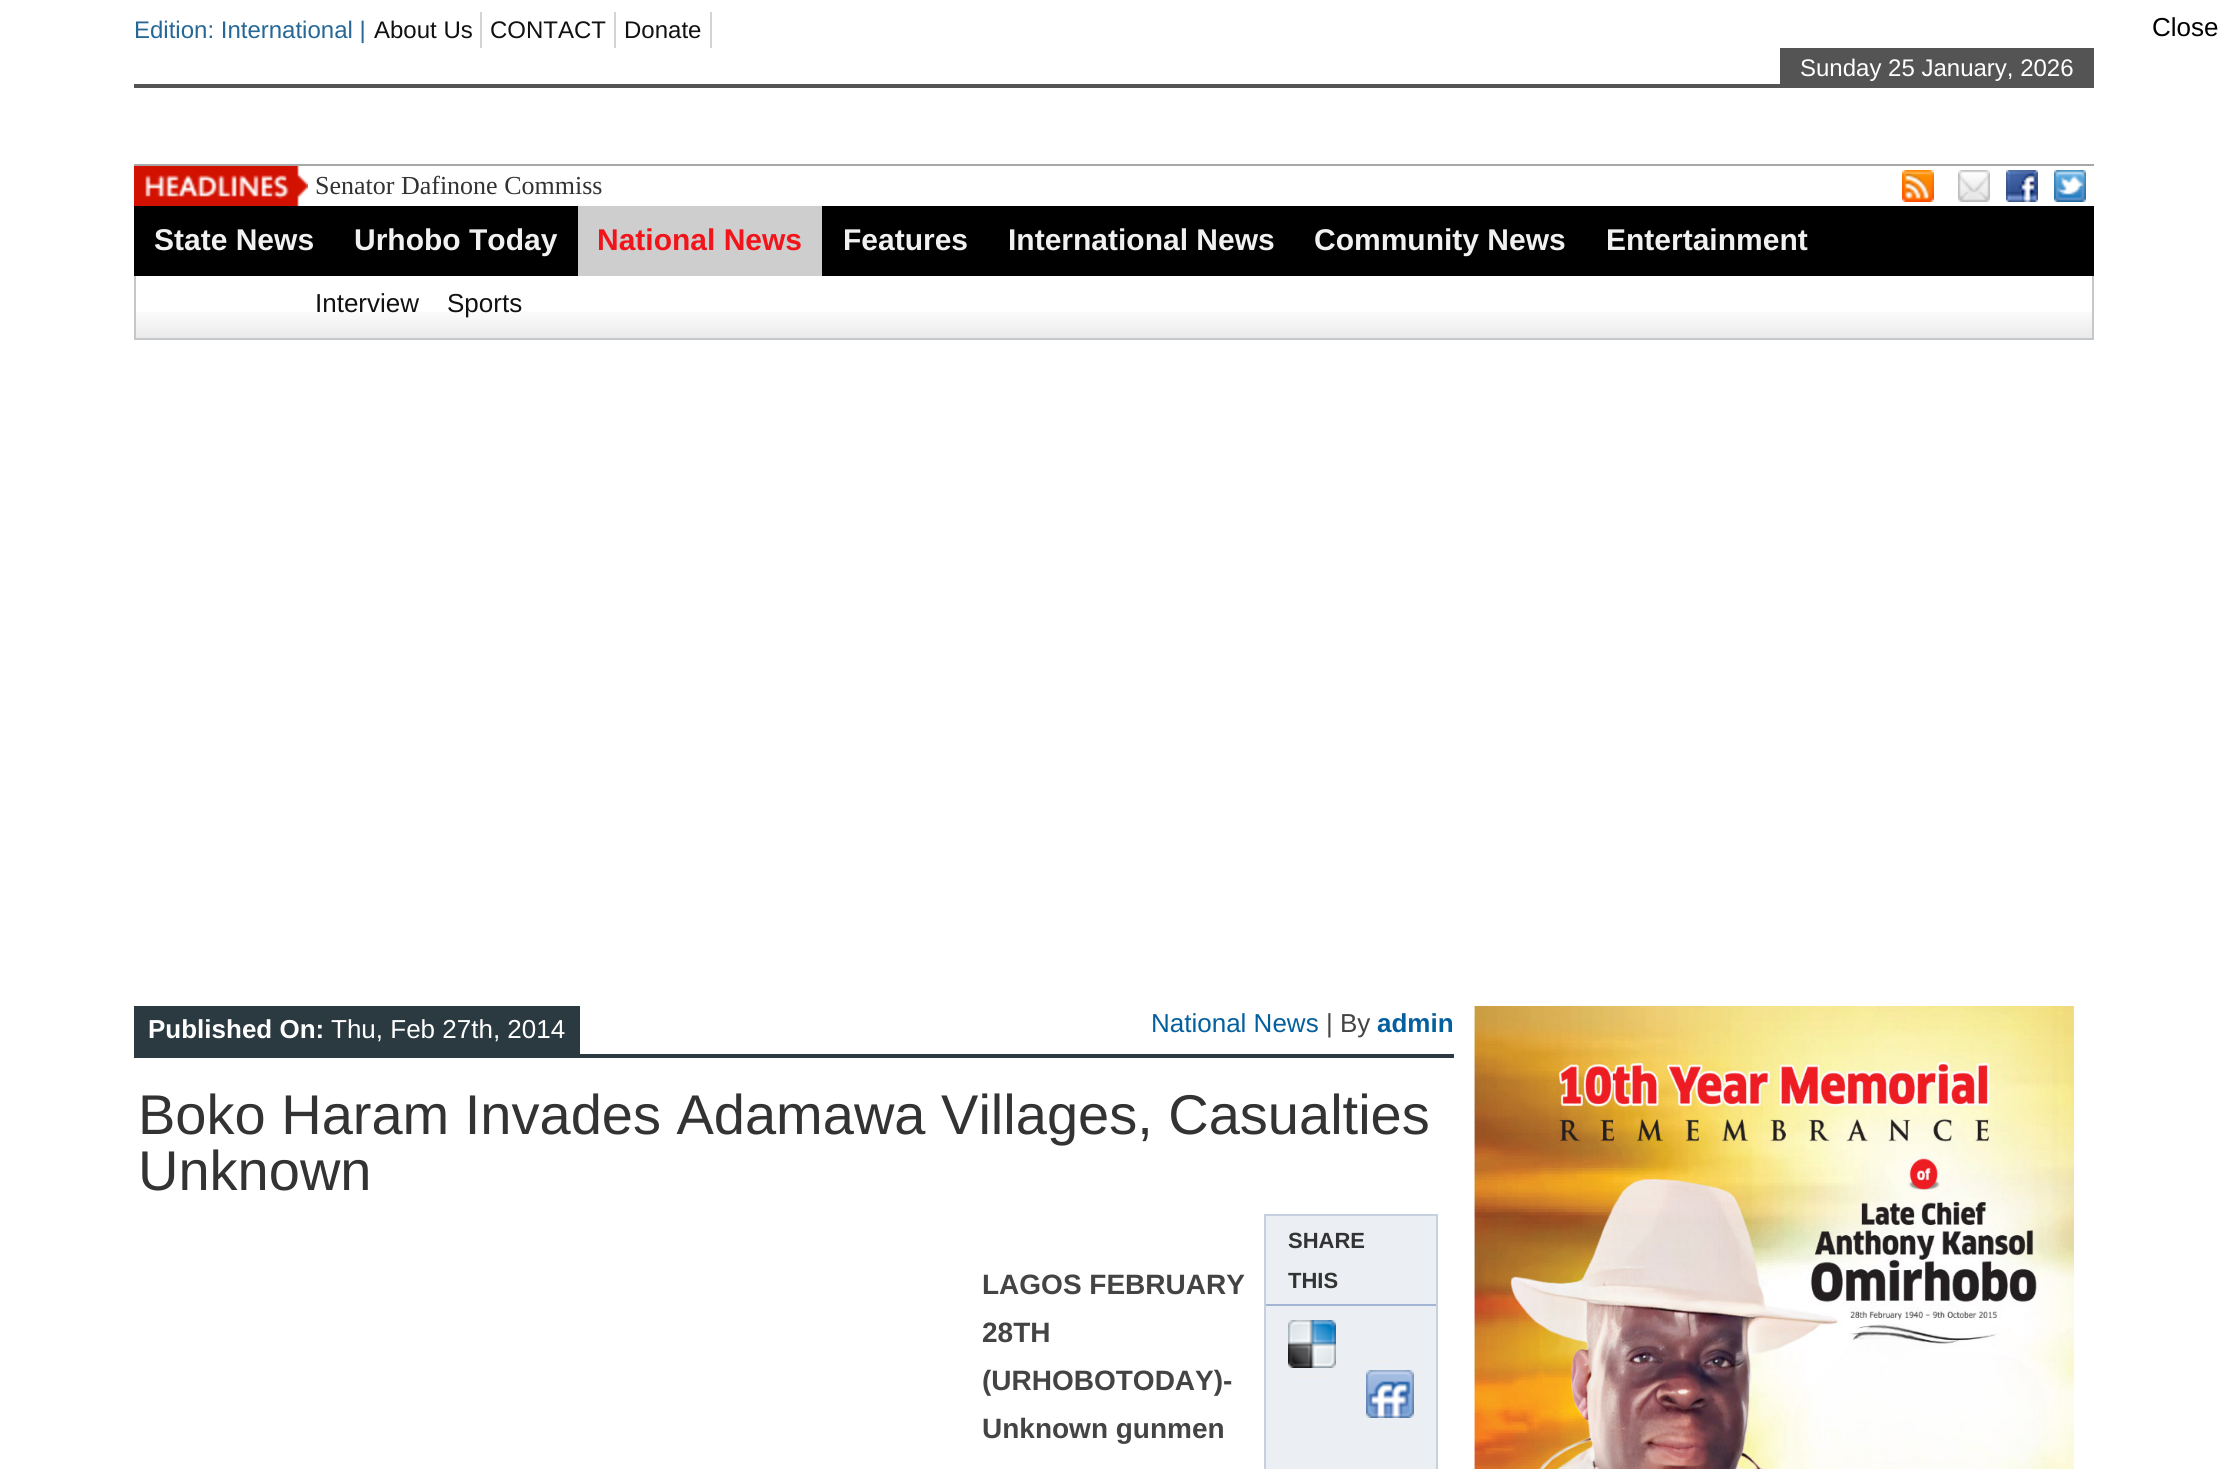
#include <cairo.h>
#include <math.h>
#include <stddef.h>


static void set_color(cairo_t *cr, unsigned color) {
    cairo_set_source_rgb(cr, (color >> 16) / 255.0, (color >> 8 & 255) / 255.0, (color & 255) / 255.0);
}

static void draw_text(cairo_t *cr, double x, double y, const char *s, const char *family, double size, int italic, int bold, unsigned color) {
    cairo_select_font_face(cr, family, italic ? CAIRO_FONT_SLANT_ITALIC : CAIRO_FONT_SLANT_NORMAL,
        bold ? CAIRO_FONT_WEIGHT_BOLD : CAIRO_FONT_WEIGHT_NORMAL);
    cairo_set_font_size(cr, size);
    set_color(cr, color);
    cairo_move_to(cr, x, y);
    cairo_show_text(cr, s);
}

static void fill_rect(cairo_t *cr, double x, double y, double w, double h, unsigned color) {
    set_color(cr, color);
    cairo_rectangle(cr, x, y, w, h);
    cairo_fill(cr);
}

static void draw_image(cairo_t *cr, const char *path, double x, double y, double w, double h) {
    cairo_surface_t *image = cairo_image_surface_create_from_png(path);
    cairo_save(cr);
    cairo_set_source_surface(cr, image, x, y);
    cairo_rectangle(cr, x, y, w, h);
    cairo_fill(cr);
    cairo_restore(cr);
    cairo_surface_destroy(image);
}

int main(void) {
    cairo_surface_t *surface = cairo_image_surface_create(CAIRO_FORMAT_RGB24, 2227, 1469);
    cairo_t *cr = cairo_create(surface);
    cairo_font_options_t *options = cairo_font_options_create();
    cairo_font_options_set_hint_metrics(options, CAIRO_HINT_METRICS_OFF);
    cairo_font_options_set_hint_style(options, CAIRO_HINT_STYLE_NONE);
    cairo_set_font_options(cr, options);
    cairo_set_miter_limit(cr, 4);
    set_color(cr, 0xFFFFFF);
    cairo_paint(cr);
    fill_rect(cr, 134, 84, 1960, 4, 0x545454);
    draw_text(cr, 134, 38, "Edition: International |", "Liberation Sans", 24, 0, 0, 0x256896);
    fill_rect(cr, 480, 12, 2, 36, 0xD3D3D3);
    draw_text(cr, 374, 38, "About Us", "Liberation Sans", 24, 0, 0, 0x111111);
    fill_rect(cr, 614, 12, 2, 36, 0xD3D3D3);
    draw_text(cr, 490, 38, "CONTACT", "Liberation Sans", 24, 0, 0, 0x111111);
    fill_rect(cr, 710, 12, 2, 36, 0xD3D3D3);
    draw_text(cr, 624, 38, "Donate", "Liberation Sans", 24, 0, 0, 0x111111);
    fill_rect(cr, 1780, 48, 314, 36, 0x545454);
    draw_text(cr, 1800, 76, "Sunday 25 January, 2026", "Liberation Sans", 24, 0, 0, 0xFFFFFF);
    fill_rect(cr, 134, 164, 1960, 2, 0xA8A8A8);
    draw_image(cr, "assets/img1.png", 134, 166, 174, 40);
    draw_text(cr, 315, 194, "Senator Dafinone Commiss", "Liberation Serif", 26, 0, 0, 0x333333);
    draw_image(cr, "assets/img2.png", 1902, 170, 32, 32);
    draw_image(cr, "assets/img3.png", 1958, 170, 32, 32);
    draw_image(cr, "assets/img4.png", 2006, 170, 32, 32);
    draw_image(cr, "assets/img5.png", 2054, 170, 32, 32);
    fill_rect(cr, 134, 206, 1960, 70, 0x000000);
    draw_text(cr, 154, 250, "State News", "Liberation Sans", 30, 0, 1, 0xF1F1F1);
    draw_text(cr, 354, 250, "Urhobo Today", "Liberation Sans", 30, 0, 1, 0xF1F1F1);
    fill_rect(cr, 578, 206, 244, 70, 0xCECECE);
    draw_text(cr, 597, 250, "National News", "Liberation Sans", 30, 0, 1, 0xF1141A);
    draw_text(cr, 843, 250, "Features", "Liberation Sans", 30, 0, 1, 0xF1F1F1);
    draw_text(cr, 1008, 250, "International News", "Liberation Sans", 30, 0, 1, 0xF1F1F1);
    draw_text(cr, 1314, 250, "Community News", "Liberation Sans", 30, 0, 1, 0xF1F1F1);
    draw_text(cr, 1606, 250, "Entertainment", "Liberation Sans", 30, 0, 1, 0xF1F1F1);
    draw_image(cr, "assets/img6.png", 136, 312, 1956, 26);
    fill_rect(cr, 2092, 276, 2, 64, 0xC5C8CB);
    fill_rect(cr, 134, 338, 1960, 2, 0xC5C8CB);
    fill_rect(cr, 134, 276, 2, 64, 0xC5C8CB);
    draw_text(cr, 315, 312, "Interview", "Liberation Sans", 26, 0, 0, 0x111111);
    draw_text(cr, 447, 312, "Sports", "Liberation Sans", 26, 0, 0, 0x111111);
    fill_rect(cr, 134, 1054, 1320, 4, 0x2B3A41);
    fill_rect(cr, 134, 1006, 446, 48, 0x2B3A41);
    draw_text(cr, 148, 1038, "Published On:", "Liberation Sans", 26, 0, 1, 0xFFFFFF);
    draw_text(cr, 331, 1038, "Thu, Feb 27th, 2014", "Liberation Sans", 26, 0, 0, 0xFFFFFF);
    draw_text(cr, 1151, 1032, "National News", "Liberation Sans", 26, 0, 0, 0x045F9F);
    draw_text(cr, 1326, 1032, "| By", "Liberation Sans", 26, 0, 0, 0x444444);
    draw_text(cr, 1377, 1032, "admin", "Liberation Sans", 26, 0, 1, 0x045F9F);
    draw_text(cr, 138, 1134, "Boko Haram Invades Adamawa Villages, Casualties", "Liberation Sans", 56, 0, 0, 0x333333);
    draw_text(cr, 138, 1190, "Unknown", "Liberation Sans", 56, 0, 0, 0x333333);
    set_color(cr, 0xEBEFF4);
    cairo_rectangle(cr, 1265, 1215, 172, 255);
    cairo_fill_preserve(cr);
    set_color(cr, 0xC7D0DF);
    cairo_stroke(cr);
    fill_rect(cr, 1266, 1304, 170, 2, 0xA2B5D3);
    draw_text(cr, 1288, 1248, "SHARE", "Liberation Sans", 22, 0, 1, 0x333333);
    draw_text(cr, 1288, 1288, "THIS", "Liberation Sans", 22, 0, 1, 0x333333);
    fill_rect(cr, 1288, 1376, 48, 2, 0xEEEEEE);
    draw_image(cr, "assets/img7.png", 1288, 1320, 48, 48);
    fill_rect(cr, 1366, 1360, 32, 2, 0xEEEEEE);
    fill_rect(cr, 1366, 1426, 48, 2, 0xEEEEEE);
    draw_image(cr, "assets/img8.png", 1366, 1370, 48, 48);
    draw_text(cr, 982, 1294, "LAGOS FEBRUARY", "Liberation Sans", 28, 0, 1, 0x444444);
    draw_text(cr, 982, 1342, "28TH", "Liberation Sans", 28, 0, 1, 0x444444);
    draw_text(cr, 982, 1390, "(URHOBOTODAY)-", "Liberation Sans", 28, 0, 1, 0x444444);
    draw_text(cr, 982, 1438, "Unknown gunmen", "Liberation Sans", 28, 0, 1, 0x444444);
    draw_image(cr, "assets/img9.png", 1474, 1006, 600, 463);
    draw_text(cr, 2152, 36, "Close", "Liberation Sans", 26, 0, 0, 0x000000);
    cairo_surface_write_to_png(surface, "output.png");
    cairo_font_options_destroy(options);
    cairo_destroy(cr);
    cairo_surface_destroy(surface);
    return 0;
}
